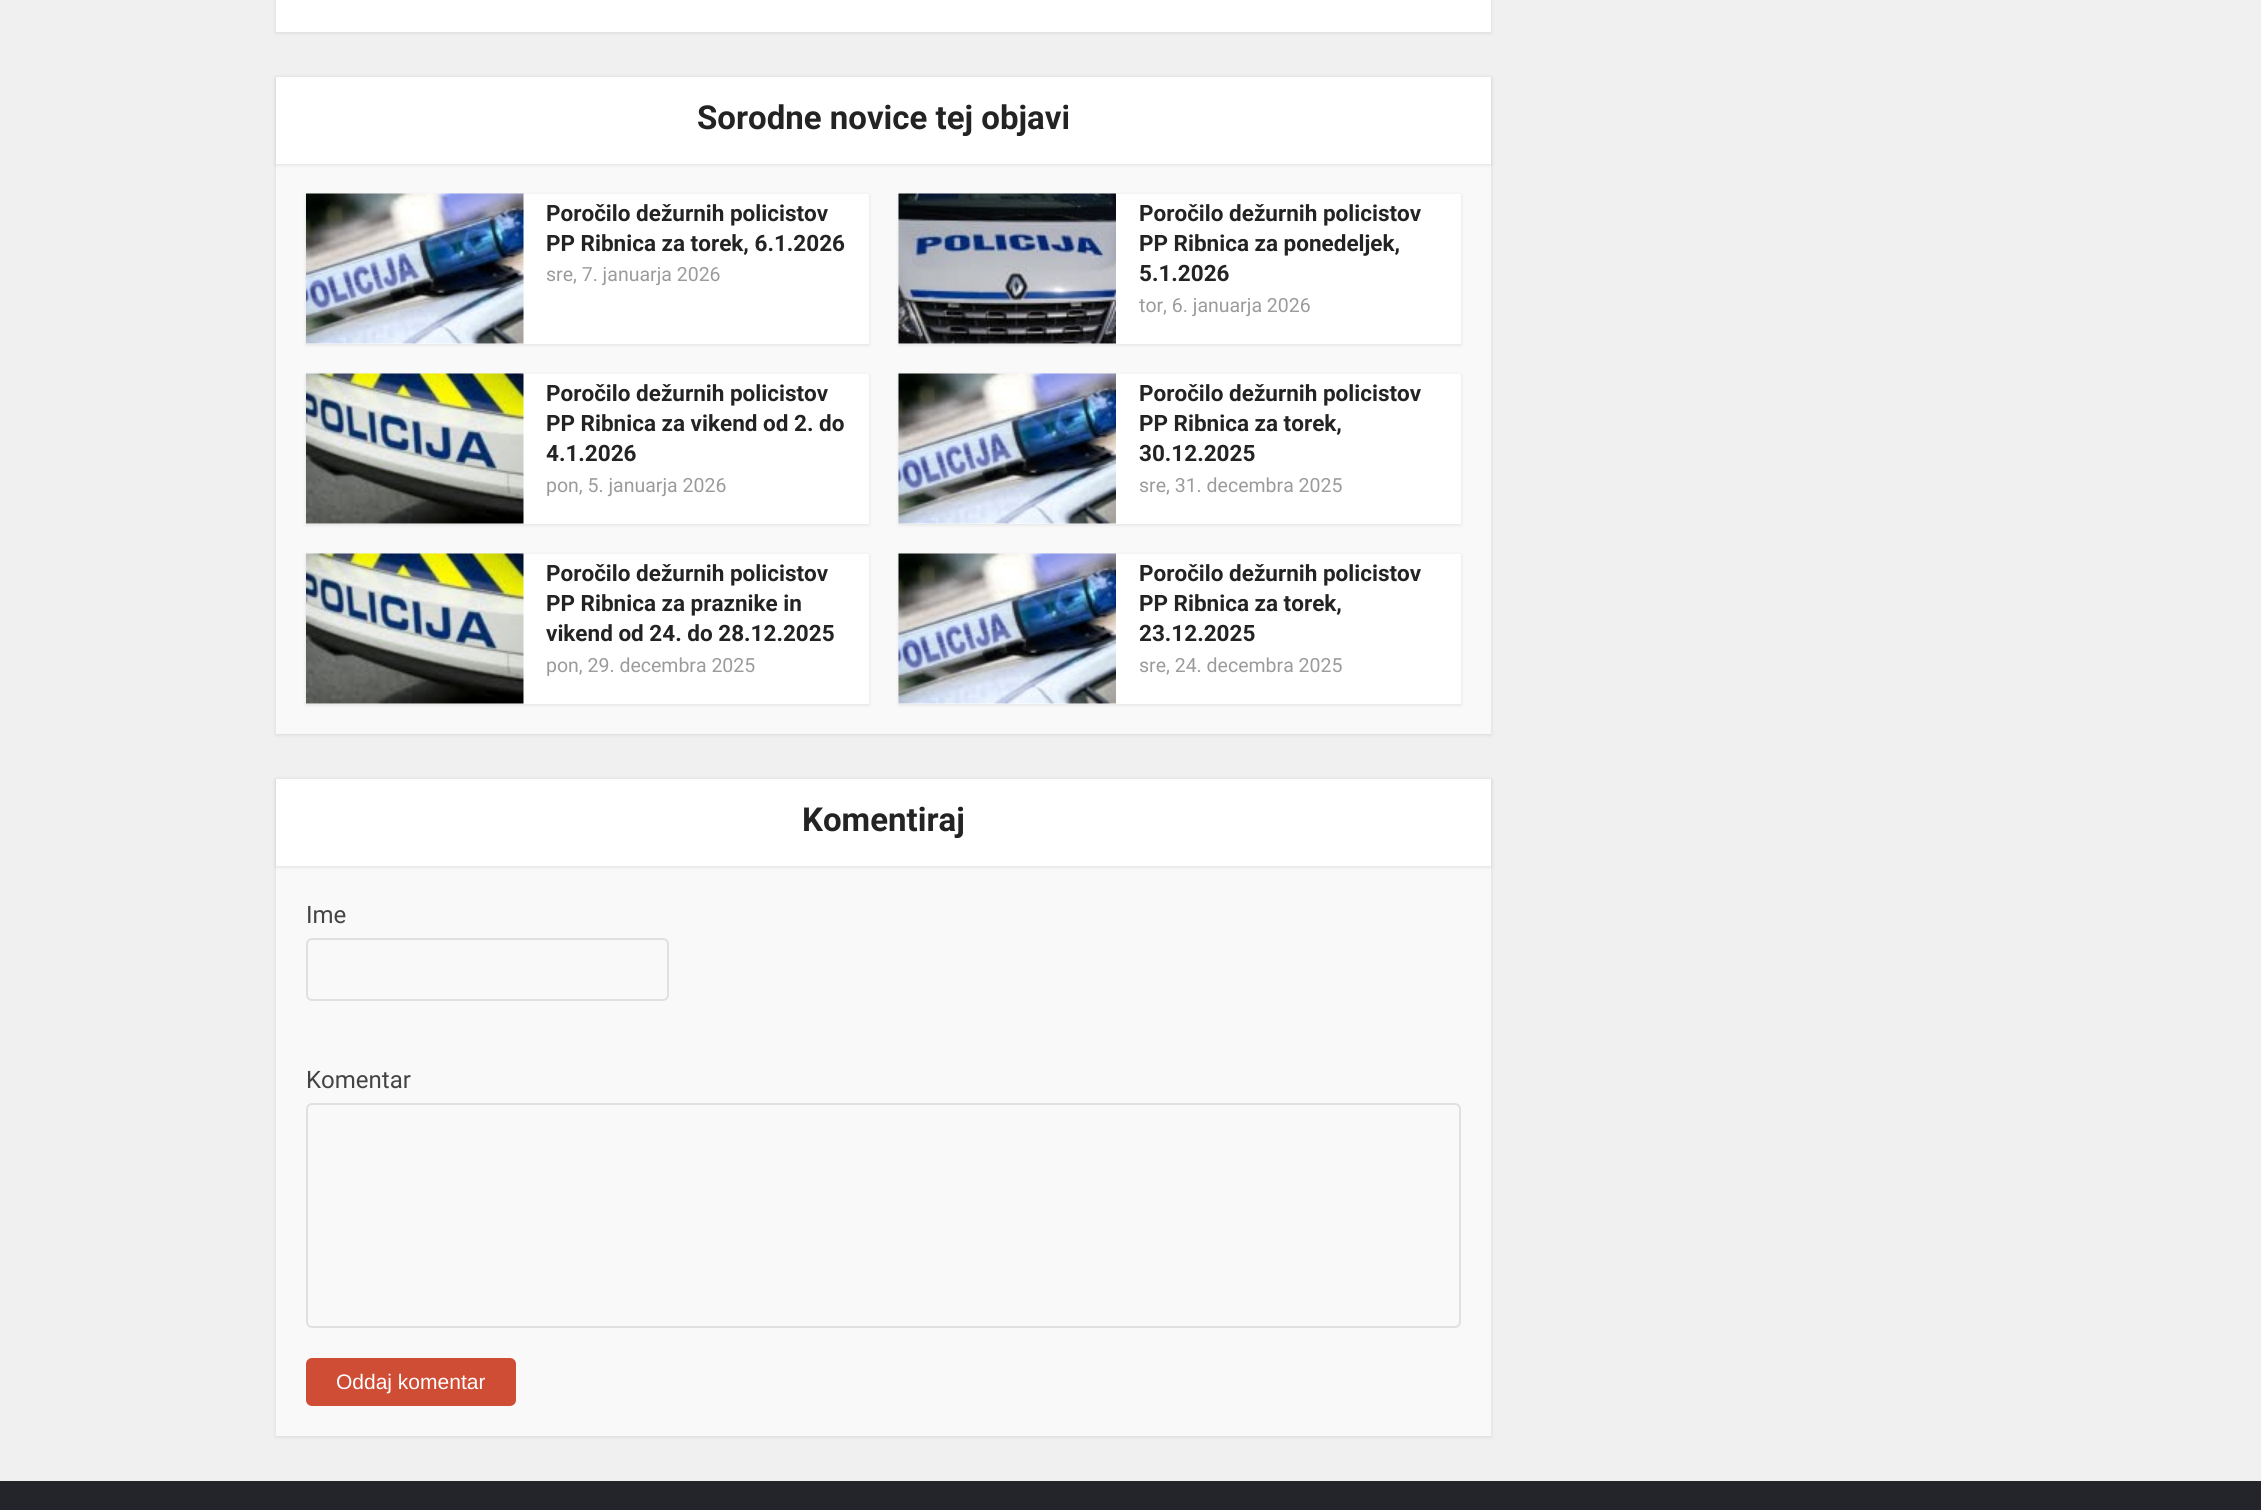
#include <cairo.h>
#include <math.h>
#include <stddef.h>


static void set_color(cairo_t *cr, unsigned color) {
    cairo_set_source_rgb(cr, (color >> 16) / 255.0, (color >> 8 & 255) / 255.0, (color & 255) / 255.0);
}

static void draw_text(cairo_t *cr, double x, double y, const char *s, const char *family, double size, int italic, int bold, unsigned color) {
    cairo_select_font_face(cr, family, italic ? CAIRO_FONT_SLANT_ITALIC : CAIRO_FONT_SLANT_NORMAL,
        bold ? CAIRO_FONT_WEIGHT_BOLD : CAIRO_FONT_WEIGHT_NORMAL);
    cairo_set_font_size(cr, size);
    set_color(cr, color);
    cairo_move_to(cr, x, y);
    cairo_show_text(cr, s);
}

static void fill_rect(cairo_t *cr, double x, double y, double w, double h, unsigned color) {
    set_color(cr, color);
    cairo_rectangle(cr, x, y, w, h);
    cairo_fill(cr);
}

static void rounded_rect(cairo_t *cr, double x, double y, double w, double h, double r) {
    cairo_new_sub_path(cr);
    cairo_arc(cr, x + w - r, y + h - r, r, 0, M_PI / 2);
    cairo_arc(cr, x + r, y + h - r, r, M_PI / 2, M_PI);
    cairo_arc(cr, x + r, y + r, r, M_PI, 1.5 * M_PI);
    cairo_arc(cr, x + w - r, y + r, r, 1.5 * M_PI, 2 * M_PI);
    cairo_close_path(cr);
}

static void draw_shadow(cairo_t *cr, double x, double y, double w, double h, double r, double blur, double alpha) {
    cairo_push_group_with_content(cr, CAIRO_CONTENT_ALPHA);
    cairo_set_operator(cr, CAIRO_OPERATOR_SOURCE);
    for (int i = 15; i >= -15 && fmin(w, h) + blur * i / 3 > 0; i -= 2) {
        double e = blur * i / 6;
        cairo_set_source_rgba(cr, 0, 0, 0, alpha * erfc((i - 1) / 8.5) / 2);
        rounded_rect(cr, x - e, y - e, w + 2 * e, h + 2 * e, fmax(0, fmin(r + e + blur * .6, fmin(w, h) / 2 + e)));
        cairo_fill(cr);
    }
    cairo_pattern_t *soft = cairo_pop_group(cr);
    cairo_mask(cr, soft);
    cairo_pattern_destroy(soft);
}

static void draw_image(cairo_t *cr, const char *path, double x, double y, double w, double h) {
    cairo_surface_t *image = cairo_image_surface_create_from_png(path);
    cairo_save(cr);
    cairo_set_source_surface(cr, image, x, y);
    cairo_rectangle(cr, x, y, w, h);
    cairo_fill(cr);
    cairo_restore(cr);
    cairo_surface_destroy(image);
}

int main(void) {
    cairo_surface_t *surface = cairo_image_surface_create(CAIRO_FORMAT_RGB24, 2261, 1510);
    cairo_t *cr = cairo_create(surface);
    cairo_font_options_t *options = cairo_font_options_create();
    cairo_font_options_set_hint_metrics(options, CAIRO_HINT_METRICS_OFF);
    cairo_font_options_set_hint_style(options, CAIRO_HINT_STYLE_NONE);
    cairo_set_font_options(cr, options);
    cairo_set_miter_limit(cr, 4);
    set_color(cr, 0xF0F0F0);
    cairo_paint(cr);
    set_color(cr, 0x000000);
    draw_shadow(cr, 276, -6, 1215, 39, 0, 2, 0.1);
    fill_rect(cr, 276, 0, 1215, 32, 0xFFFFFF);
    set_color(cr, 0x000000);
    draw_shadow(cr, 276, 78, 1215, 657, 0, 2, 0.1);
    fill_rect(cr, 276, 164, 1215, 570, 0xF9F9F9);
    set_color(cr, 0x000000);
    draw_shadow(cr, 276, 78, 1215, 87, 0, 2, 0.1);
    fill_rect(cr, 276, 77, 1215, 87, 0xFFFFFF);
    draw_text(cr, 697, 129, "Sorodne novice tej objavi", "Roboto", 33, 0, 1, 0x232323);
    set_color(cr, 0x000000);
    draw_shadow(cr, 306, 195, 563, 150, 0, 2, 0.1);
    fill_rect(cr, 306, 194, 563, 150, 0xFFFFFF);
    draw_image(cr, "assets/img1.png", 306, 193, 218, 151);
    draw_text(cr, 546, 221, "Poročilo dežurnih policistov", "Roboto", 22.5, 0, 1, 0x232323);
    draw_text(cr, 546, 251, "PP Ribnica za torek, 6.1.2026", "Roboto", 22.5, 0, 1, 0x232323);
    draw_text(cr, 546, 281, "sre, 7. januarja 2026", "Roboto", 19.5, 0, 0, 0x9B9B9B);
    set_color(cr, 0x000000);
    draw_shadow(cr, 899, 195, 562, 150, 0, 2, 0.1);
    fill_rect(cr, 899, 194, 562, 150, 0xFFFFFF);
    draw_image(cr, "assets/img2.png", 898, 193, 218, 151);
    draw_text(cr, 1139, 221, "Poročilo dežurnih policistov", "Roboto", 22.5, 0, 1, 0x232323);
    draw_text(cr, 1139, 251, "PP Ribnica za ponedeljek,", "Roboto", 22.5, 0, 1, 0x232323);
    draw_text(cr, 1139, 281, "5.1.2026", "Roboto", 22.5, 0, 1, 0x232323);
    draw_text(cr, 1139, 312, "tor, 6. januarja 2026", "Roboto", 19.5, 0, 0, 0x9B9B9B);
    set_color(cr, 0x000000);
    draw_shadow(cr, 306, 375, 563, 150, 0, 2, 0.1);
    fill_rect(cr, 306, 374, 563, 150, 0xFFFFFF);
    draw_image(cr, "assets/img3.png", 306, 373, 218, 151);
    draw_text(cr, 546, 401, "Poročilo dežurnih policistov", "Roboto", 22.5, 0, 1, 0x232323);
    draw_text(cr, 546, 431, "PP Ribnica za vikend od 2. do", "Roboto", 22.5, 0, 1, 0x232323);
    draw_text(cr, 546, 461, "4.1.2026", "Roboto", 22.5, 0, 1, 0x232323);
    draw_text(cr, 546, 492, "pon, 5. januarja 2026", "Roboto", 19.5, 0, 0, 0x9B9B9B);
    set_color(cr, 0x000000);
    draw_shadow(cr, 899, 375, 562, 150, 0, 2, 0.1);
    fill_rect(cr, 899, 374, 562, 150, 0xFFFFFF);
    draw_image(cr, "assets/img4.png", 898, 373, 218, 151);
    draw_text(cr, 1139, 401, "Poročilo dežurnih policistov", "Roboto", 22.5, 0, 1, 0x232323);
    draw_text(cr, 1139, 431, "PP Ribnica za torek,", "Roboto", 22.5, 0, 1, 0x232323);
    draw_text(cr, 1139, 461, "30.12.2025", "Roboto", 22.5, 0, 1, 0x232323);
    draw_text(cr, 1139, 492, "sre, 31. decembra 2025", "Roboto", 19.5, 0, 0, 0x9B9B9B);
    set_color(cr, 0x000000);
    draw_shadow(cr, 306, 555, 563, 150, 0, 2, 0.1);
    fill_rect(cr, 306, 554, 563, 150, 0xFFFFFF);
    draw_image(cr, "assets/img3.png", 306, 553, 218, 151);
    draw_text(cr, 546, 581, "Poročilo dežurnih policistov", "Roboto", 22.5, 0, 1, 0x232323);
    draw_text(cr, 546, 611, "PP Ribnica za praznike in", "Roboto", 22.5, 0, 1, 0x232323);
    draw_text(cr, 546, 641, "vikend od 24. do 28.12.2025", "Roboto", 22.5, 0, 1, 0x232323);
    draw_text(cr, 546, 672, "pon, 29. decembra 2025", "Roboto", 19.5, 0, 0, 0x9B9B9B);
    set_color(cr, 0x000000);
    draw_shadow(cr, 899, 555, 562, 150, 0, 2, 0.1);
    fill_rect(cr, 899, 554, 562, 150, 0xFFFFFF);
    draw_image(cr, "assets/img4.png", 898, 553, 218, 151);
    draw_text(cr, 1139, 581, "Poročilo dežurnih policistov", "Roboto", 22.5, 0, 1, 0x232323);
    draw_text(cr, 1139, 611, "PP Ribnica za torek,", "Roboto", 22.5, 0, 1, 0x232323);
    draw_text(cr, 1139, 641, "23.12.2025", "Roboto", 22.5, 0, 1, 0x232323);
    draw_text(cr, 1139, 672, "sre, 24. decembra 2025", "Roboto", 19.5, 0, 0, 0x9B9B9B);
    set_color(cr, 0x000000);
    draw_shadow(cr, 276, 780, 1215, 657, 0, 2, 0.1);
    fill_rect(cr, 276, 866, 1215, 570, 0xF9F9F9);
    set_color(cr, 0x000000);
    draw_shadow(cr, 276, 780, 1215, 87, 0, 2, 0.1);
    fill_rect(cr, 276, 779, 1215, 87, 0xFFFFFF);
    draw_text(cr, 802, 831, "Komentiraj", "Roboto", 33, 0, 1, 0x232323);
    draw_text(cr, 306, 923, "Ime", "Roboto", 24, 0, 0, 0x444444);
    rounded_rect(cr, 307, 939, 361, 61, 5);
    set_color(cr, 0xE0E0E0);
    cairo_stroke(cr);
    draw_text(cr, 306, 1088, "Komentar", "Roboto", 24, 0, 0, 0x444444);
    rounded_rect(cr, 307, 1104, 1153, 223, 5);
    set_color(cr, 0xE0E0E0);
    cairo_stroke(cr);
    set_color(cr, 0xCF4D35);
    rounded_rect(cr, 306, 1358, 210, 48, 6);
    cairo_fill(cr);
    draw_text(cr, 336, 1389, "Oddaj komentar", "Liberation Sans", 21, 0, 0, 0xFFFFFF);
    fill_rect(cr, 0, 1481, 2261, 29, 0x24252A);
    cairo_surface_write_to_png(surface, "output.png");
    cairo_font_options_destroy(options);
    cairo_destroy(cr);
    cairo_surface_destroy(surface);
    return 0;
}
